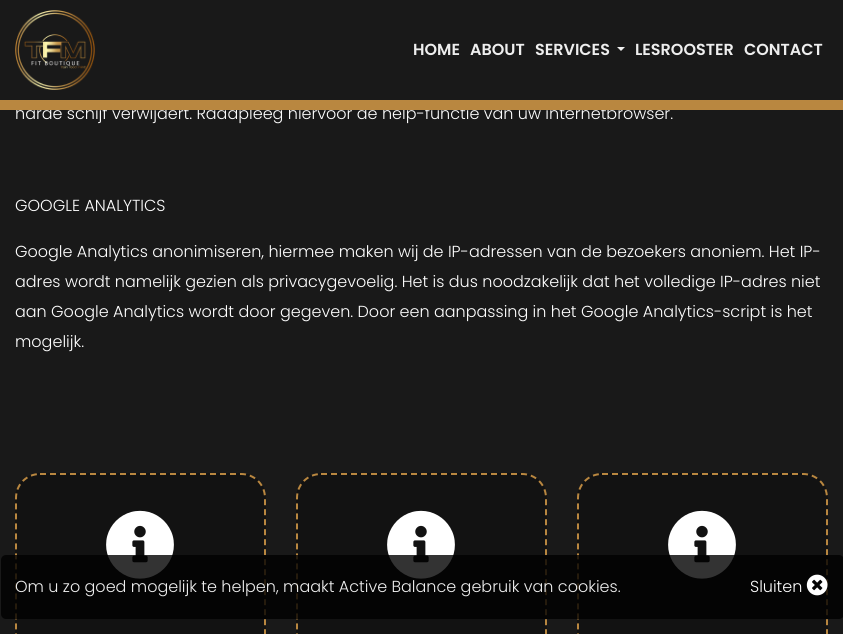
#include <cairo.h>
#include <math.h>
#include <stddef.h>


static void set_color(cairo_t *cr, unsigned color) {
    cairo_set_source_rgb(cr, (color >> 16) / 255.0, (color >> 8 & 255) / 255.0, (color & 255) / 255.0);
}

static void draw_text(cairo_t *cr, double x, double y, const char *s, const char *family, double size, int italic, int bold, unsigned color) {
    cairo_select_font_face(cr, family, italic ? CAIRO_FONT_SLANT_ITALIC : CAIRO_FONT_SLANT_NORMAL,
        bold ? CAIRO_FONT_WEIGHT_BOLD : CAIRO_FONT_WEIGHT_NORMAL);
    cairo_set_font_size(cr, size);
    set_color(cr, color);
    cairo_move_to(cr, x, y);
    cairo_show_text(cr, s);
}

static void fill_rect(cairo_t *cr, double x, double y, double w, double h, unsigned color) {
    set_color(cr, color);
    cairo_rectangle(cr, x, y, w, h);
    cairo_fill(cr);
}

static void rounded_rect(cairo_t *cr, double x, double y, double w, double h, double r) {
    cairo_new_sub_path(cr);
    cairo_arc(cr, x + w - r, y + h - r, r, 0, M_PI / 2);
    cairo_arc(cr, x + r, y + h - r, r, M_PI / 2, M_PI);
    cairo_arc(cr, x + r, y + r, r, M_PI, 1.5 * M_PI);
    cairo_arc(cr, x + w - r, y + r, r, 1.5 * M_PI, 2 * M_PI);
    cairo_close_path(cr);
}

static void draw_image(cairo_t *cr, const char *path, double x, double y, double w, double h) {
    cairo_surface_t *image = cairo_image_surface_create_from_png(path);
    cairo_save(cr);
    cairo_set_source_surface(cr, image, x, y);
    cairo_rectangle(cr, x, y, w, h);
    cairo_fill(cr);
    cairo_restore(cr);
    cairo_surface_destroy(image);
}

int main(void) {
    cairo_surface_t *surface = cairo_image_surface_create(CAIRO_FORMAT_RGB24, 843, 634);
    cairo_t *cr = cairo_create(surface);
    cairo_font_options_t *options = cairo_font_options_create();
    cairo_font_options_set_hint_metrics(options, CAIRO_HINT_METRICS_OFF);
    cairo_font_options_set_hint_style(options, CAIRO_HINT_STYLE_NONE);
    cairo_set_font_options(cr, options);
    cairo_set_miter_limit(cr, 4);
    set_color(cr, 0x191919);
    cairo_paint(cr);
    draw_text(cr, 15, 119, "harde schijf verwijdert. Raadpleeg hiervoor de help-functie van uw internetbrowser.", "Poppins Light", 16, 0, 0, 0xFFFFFF);
    fill_rect(cr, 0, 100, 843, 10, 0xB98740);
    draw_image(cr, "assets/img1.png", 15, 10, 80, 80);
    draw_text(cr, 413, 55, "HOME", "Poppins SemiBold", 16, 0, 0, 0xEEEEEE);
    draw_text(cr, 470, 55, "ABOUT", "Poppins SemiBold", 16, 0, 0, 0xEEEEEE);
    draw_text(cr, 535, 55, "SERVICES", "Poppins SemiBold", 16, 0, 0, 0xEEEEEE);
    set_color(cr, 0xEFEFEF);
    cairo_new_path(cr);
    cairo_move_to(cr, 617, 47);
    cairo_line_to(cr, 625, 47);
    cairo_line_to(cr, 621, 51);
    cairo_close_path(cr);
    cairo_fill(cr);
    draw_text(cr, 635, 55, "LESROOSTER", "Poppins SemiBold", 16, 0, 0, 0xEEEEEE);
    draw_text(cr, 744, 55, "CONTACT", "Poppins SemiBold", 16, 0, 0, 0xEEEEEE);
    draw_text(cr, 15, 211, "GOOGLE ANALYTICS", "Poppins Light", 16, 0, 0, 0xFFFFFF);
    draw_text(cr, 15, 257, "Google Analytics anonimiseren, hiermee maken wij de IP-adressen van de bezoekers anoniem. Het IP-", "Poppins Light", 16, 0, 0, 0xFFFFFF);
    draw_text(cr, 15, 287, "adres wordt namelijk gezien als privacygevoelig. Het is dus noodzakelijk dat het volledige IP-adres niet", "Poppins Light", 16, 0, 0, 0xFFFFFF);
    draw_text(cr, 15, 317, "aan Google Analytics wordt door gegeven. Door een aanpassing in het Google Analytics-script is het", "Poppins Light", 16, 0, 0, 0xFFFFFF);
    draw_text(cr, 15, 347, "mogelijk.", "Poppins Light", 16, 0, 0, 0xFFFFFF);
    set_color(cr, 0x121212);
    rounded_rect(cr, 15, 473, 251, 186, 25);
    cairo_fill(cr);
    cairo_new_path(cr);
    cairo_move_to(cr, 40, 474);
    cairo_line_to(cr, 241, 474);
    cairo_curve_to(cr, 254.5, 474, 265, 484.5, 265, 498);
    cairo_line_to(cr, 265, 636);
    cairo_curve_to(cr, 265, 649.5, 254.5, 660, 241, 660);
    cairo_line_to(cr, 40, 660);
    cairo_curve_to(cr, 26.5, 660, 16, 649.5, 16, 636);
    cairo_line_to(cr, 16, 498);
    cairo_curve_to(cr, 16, 484.5, 26.5, 474, 40, 474);
    cairo_close_path(cr);
    set_color(cr, 0xB98740);
    cairo_set_dash(cr, (double[]){6, 4}, 2, 0);
    cairo_stroke(cr);
    draw_image(cr, "assets/img2.png", 106, 510, 68, 69);
    set_color(cr, 0x121212);
    rounded_rect(cr, 296, 473, 251, 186, 25);
    cairo_fill(cr);
    cairo_new_path(cr);
    cairo_move_to(cr, 321, 474);
    cairo_line_to(cr, 522, 474);
    cairo_curve_to(cr, 535.5, 474, 546, 484.5, 546, 498);
    cairo_line_to(cr, 546, 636);
    cairo_curve_to(cr, 546, 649.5, 535.5, 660, 522, 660);
    cairo_line_to(cr, 321, 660);
    cairo_curve_to(cr, 307.5, 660, 297, 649.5, 297, 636);
    cairo_line_to(cr, 297, 498);
    cairo_curve_to(cr, 297, 484.5, 307.5, 474, 321, 474);
    cairo_close_path(cr);
    set_color(cr, 0xB98740);
    cairo_stroke(cr);
    draw_image(cr, "assets/img2.png", 387, 510, 68, 69);
    set_color(cr, 0x121212);
    rounded_rect(cr, 577, 473, 251, 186, 25);
    cairo_fill(cr);
    cairo_new_path(cr);
    cairo_move_to(cr, 602, 474);
    cairo_line_to(cr, 803, 474);
    cairo_curve_to(cr, 816.5, 474, 827, 484.5, 827, 498);
    cairo_line_to(cr, 827, 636);
    cairo_curve_to(cr, 827, 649.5, 816.5, 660, 803, 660);
    cairo_line_to(cr, 602, 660);
    cairo_curve_to(cr, 588.5, 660, 578, 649.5, 578, 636);
    cairo_line_to(cr, 578, 498);
    cairo_curve_to(cr, 578, 484.5, 588.5, 474, 602, 474);
    cairo_close_path(cr);
    set_color(cr, 0xB98740);
    cairo_stroke(cr);
    draw_image(cr, "assets/img2.png", 668, 510, 68, 69);
    cairo_set_source_rgba(cr, 0, 0, 0, 0.8);
    rounded_rect(cr, 1, 555, 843, 64, 5);
    cairo_fill(cr);
    draw_text(cr, 15, 592, "Om u zo goed mogelijk te helpen, maakt Active Balance gebruik van cookies.", "Poppins Light", 16, 0, 0, 0xEEEEEE);
    draw_text(cr, 750, 592, "Sluiten", "Poppins Light", 16, 0, 0, 0xFFFFFF);
    draw_image(cr, "assets/img3.png", 806, 574, 22, 22);
    cairo_surface_write_to_png(surface, "output.png");
    cairo_font_options_destroy(options);
    cairo_destroy(cr);
    cairo_surface_destroy(surface);
    return 0;
}
